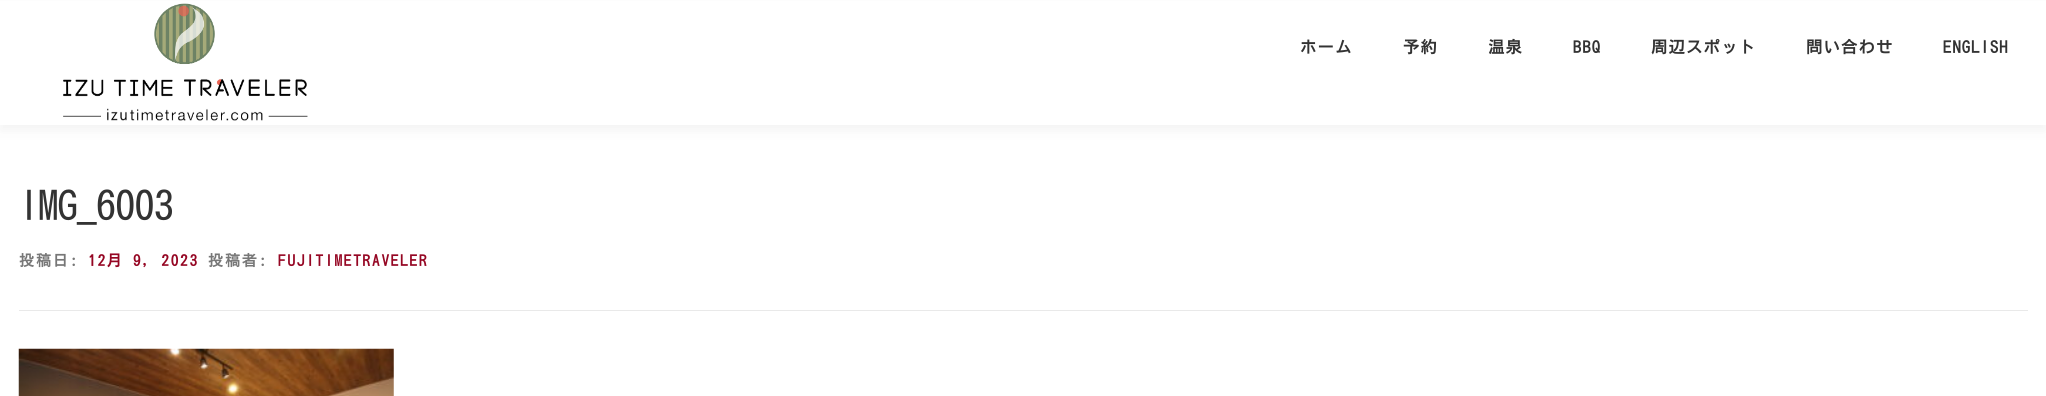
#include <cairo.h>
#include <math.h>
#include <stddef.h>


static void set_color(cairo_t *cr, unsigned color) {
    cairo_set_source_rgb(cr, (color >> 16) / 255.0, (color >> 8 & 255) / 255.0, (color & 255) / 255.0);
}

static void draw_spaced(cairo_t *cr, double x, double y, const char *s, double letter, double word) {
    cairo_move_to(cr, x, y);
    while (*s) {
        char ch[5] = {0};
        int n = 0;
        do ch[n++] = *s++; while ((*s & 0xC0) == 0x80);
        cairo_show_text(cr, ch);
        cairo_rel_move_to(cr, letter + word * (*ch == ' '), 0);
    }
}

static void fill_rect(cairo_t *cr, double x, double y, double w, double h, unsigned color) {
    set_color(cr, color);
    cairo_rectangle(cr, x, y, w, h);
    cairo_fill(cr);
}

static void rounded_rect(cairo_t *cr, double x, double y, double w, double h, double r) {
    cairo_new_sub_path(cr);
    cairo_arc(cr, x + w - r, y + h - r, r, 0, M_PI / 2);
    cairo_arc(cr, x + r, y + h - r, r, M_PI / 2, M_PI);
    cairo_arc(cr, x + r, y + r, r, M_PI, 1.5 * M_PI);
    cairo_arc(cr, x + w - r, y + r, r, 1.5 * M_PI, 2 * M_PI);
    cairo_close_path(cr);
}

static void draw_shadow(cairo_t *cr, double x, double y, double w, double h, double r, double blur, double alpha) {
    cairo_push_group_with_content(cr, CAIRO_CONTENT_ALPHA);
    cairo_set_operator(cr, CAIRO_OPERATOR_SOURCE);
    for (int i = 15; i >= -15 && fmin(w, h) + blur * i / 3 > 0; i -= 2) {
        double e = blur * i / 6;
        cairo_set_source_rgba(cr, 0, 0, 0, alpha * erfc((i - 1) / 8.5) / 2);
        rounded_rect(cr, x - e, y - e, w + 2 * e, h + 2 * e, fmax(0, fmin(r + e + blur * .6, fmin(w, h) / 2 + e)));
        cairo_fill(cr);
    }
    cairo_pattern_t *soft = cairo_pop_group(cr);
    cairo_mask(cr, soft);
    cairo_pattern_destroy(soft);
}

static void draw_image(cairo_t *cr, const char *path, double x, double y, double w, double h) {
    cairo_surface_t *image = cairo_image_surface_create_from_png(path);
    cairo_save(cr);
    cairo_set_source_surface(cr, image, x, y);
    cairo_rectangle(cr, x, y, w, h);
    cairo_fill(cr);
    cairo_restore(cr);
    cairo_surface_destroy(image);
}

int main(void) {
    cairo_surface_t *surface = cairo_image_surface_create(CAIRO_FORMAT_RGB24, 2046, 396);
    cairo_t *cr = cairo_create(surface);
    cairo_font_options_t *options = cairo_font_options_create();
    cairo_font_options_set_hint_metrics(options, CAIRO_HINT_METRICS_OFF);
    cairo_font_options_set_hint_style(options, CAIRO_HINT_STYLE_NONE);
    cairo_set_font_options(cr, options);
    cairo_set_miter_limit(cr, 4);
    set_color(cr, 0xFFFFFF);
    cairo_paint(cr);
    set_color(cr, 0x323232);
    draw_shadow(cr, 0, 6, 2046, 125, 0, 6, 0.06);
    fill_rect(cr, 0, 1, 2046, 124, 0xFFFFFF);
    draw_image(cr, "assets/img1.png", 63, 3, 245, 118);
    cairo_select_font_face(cr, "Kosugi", CAIRO_FONT_SLANT_NORMAL, CAIRO_FONT_WEIGHT_BOLD);
    cairo_set_font_size(cr, 16.25);
    set_color(cr, 0x333333);
    draw_spaced(cr, 1300, 53, "ホーム", 1.25, 0);
    draw_spaced(cr, 1403, 53, "予約", 1.25, 0);
    draw_spaced(cr, 1488, 53, "温泉", 1.25, 0);
    draw_spaced(cr, 1573, 53, "BBQ", 1.25, 0);
    draw_spaced(cr, 1651, 53, "周辺スポット", 1.25, 0);
    draw_spaced(cr, 1806, 53, "問い合わせ", 1.25, 0);
    draw_spaced(cr, 1943, 53, "ENGLISH", 1.25, 0);
    cairo_select_font_face(cr, "Kosugi", CAIRO_FONT_SLANT_NORMAL, CAIRO_FONT_WEIGHT_NORMAL);
    cairo_set_font_size(cr, 40);
    draw_spaced(cr, 19, 220, "IMG_6003", -0.75, 0);
    fill_rect(cr, 19, 310, 2009, 1, 0xE9E9E9);
    cairo_select_font_face(cr, "Kosugi", CAIRO_FONT_SLANT_NORMAL, CAIRO_FONT_WEIGHT_BOLD);
    cairo_set_font_size(cr, 15);
    set_color(cr, 0x777777);
    draw_spaced(cr, 19, 266, "投稿日:", 1.9, 0);
    set_color(cr, 0x950623);
    draw_spaced(cr, 88, 266, "12月 9, 2023", 1.9, 0);
    set_color(cr, 0x777777);
    draw_spaced(cr, 208, 266, "投稿者:", 1.9, 0);
    set_color(cr, 0x950623);
    draw_spaced(cr, 278, 266, "FUJITIMETRAVELER", 1.9, 0);
    draw_image(cr, "assets/img2.png", 18, 348, 376, 48);
    cairo_surface_write_to_png(surface, "output.png");
    cairo_font_options_destroy(options);
    cairo_destroy(cr);
    cairo_surface_destroy(surface);
    return 0;
}
